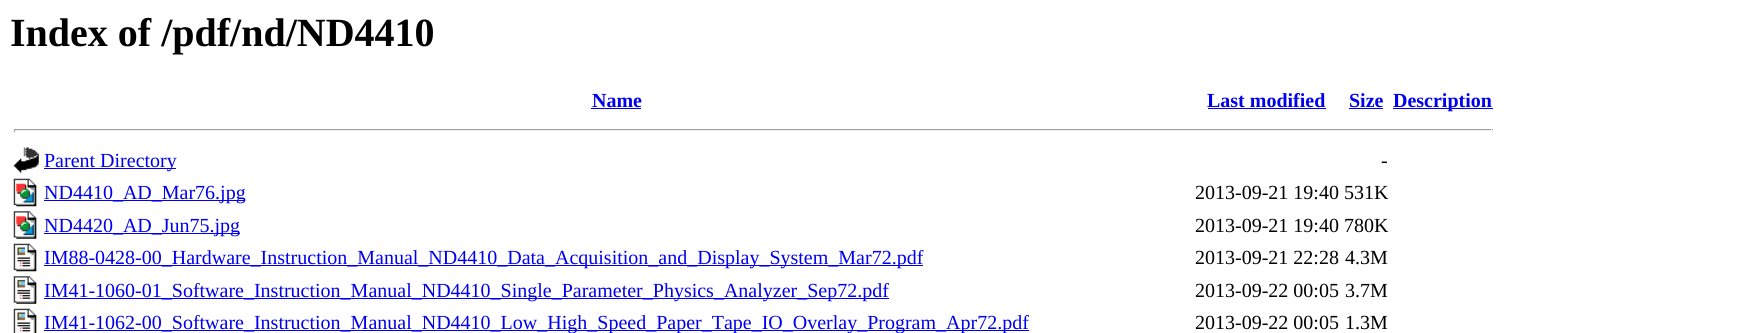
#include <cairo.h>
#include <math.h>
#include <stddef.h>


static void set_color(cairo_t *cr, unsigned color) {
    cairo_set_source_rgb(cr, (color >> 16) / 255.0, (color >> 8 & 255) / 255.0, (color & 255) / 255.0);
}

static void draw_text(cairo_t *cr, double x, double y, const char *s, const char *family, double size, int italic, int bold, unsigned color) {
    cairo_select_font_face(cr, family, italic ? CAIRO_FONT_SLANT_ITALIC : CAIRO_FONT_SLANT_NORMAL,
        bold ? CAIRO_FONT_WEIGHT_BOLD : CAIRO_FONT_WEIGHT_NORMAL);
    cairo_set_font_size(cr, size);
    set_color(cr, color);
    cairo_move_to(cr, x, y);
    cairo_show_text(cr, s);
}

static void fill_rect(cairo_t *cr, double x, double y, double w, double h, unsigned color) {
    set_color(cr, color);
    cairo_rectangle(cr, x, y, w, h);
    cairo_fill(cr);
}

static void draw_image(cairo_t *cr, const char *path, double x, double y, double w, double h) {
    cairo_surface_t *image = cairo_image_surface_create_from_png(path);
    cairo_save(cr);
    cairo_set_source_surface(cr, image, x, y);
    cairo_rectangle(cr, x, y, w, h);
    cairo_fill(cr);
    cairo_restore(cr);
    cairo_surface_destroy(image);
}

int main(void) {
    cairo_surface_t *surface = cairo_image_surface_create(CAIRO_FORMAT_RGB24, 1762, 333);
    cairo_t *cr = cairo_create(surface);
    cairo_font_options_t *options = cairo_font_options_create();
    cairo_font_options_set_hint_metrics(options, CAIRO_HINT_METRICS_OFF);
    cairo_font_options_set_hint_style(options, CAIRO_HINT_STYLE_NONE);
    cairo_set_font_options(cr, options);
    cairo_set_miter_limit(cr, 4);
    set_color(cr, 0xFFFFFF);
    cairo_paint(cr);
    draw_text(cr, 10, 46, "Index of /pdf/nd/ND4410", "Liberation Serif", 40, 0, 1, 0x000000);
    draw_text(cr, 592, 107, "Name", "Liberation Serif", 20, 0, 1, 0x0000EE);
    fill_rect(cr, 591, 108, 50, 1, 0x0000EE);
    draw_text(cr, 1207, 107, "Last modified", "Liberation Serif", 20, 0, 1, 0x0000EE);
    fill_rect(cr, 1208, 108, 118, 1, 0x0000EE);
    draw_text(cr, 1349, 107, "Size", "Liberation Serif", 20, 0, 1, 0x0000EE);
    fill_rect(cr, 1349, 108, 34, 1, 0x0000EE);
    fill_rect(cr, 1393, 108, 100, 1, 0x0000EE);
    draw_text(cr, 1393, 107, "Description", "Liberation Serif", 20, 0, 1, 0x0000EE);
    fill_rect(cr, 14, 129, 1479, 1, 0x9F9F9F);
    fill_rect(cr, 1491, 129, 1, 3, 0xEEEEEE);
    fill_rect(cr, 14, 130, 1479, 1, 0xEEEEEE);
    fill_rect(cr, 14, 129, 1, 3, 0x9F9F9F);
    draw_image(cr, "assets/img1.png", 13, 147, 26, 26);
    fill_rect(cr, 44, 168, 132, 1, 0x0000EE);
    draw_text(cr, 44, 167, "Parent Directory", "Liberation Serif", 20, 0, 0, 0x0000EE);
    draw_text(cr, 1381, 167, "-", "Liberation Serif", 20, 0, 0, 0x000000);
    draw_image(cr, "assets/img2.png", 13, 178, 24, 29);
    fill_rect(cr, 44, 200, 201, 1, 0x0000EE);
    draw_text(cr, 44, 199, "ND4410_AD_Mar76.jpg", "Liberation Serif", 20, 0, 0, 0x0000EE);
    draw_text(cr, 1195, 199, "2013-09-21 19:40 531K", "Liberation Serif", 20, 0, 0, 0x000000);
    draw_image(cr, "assets/img3.png", 13, 211, 24, 28);
    fill_rect(cr, 44, 233, 196, 1, 0x0000EE);
    draw_text(cr, 44, 232, "ND4420_AD_Jun75.jpg", "Liberation Serif", 20, 0, 0, 0x0000EE);
    draw_text(cr, 1195, 232, "2013-09-21 19:40 780K", "Liberation Serif", 20, 0, 0, 0x000000);
    draw_image(cr, "assets/img4.png", 13, 243, 24, 29);
    fill_rect(cr, 44, 265, 879, 1, 0x0000EE);
    draw_text(cr, 44, 264, "IM88-0428-00_Hardware_Instruction_Manual_ND4410_Data_Acquisition_and_Display_System_Mar72.pdf", "Liberation Serif", 20, 0, 0, 0x0000EE);
    draw_text(cr, 1195, 264, "2013-09-21 22:28", "Liberation Serif", 20, 0, 0, 0x000000);
    draw_text(cr, 1345, 264, "4.3M", "Liberation Serif", 20, 0, 0, 0x000000);
    draw_image(cr, "assets/img5.png", 13, 276, 24, 28);
    fill_rect(cr, 44, 298, 845, 1, 0x0000EE);
    draw_text(cr, 44, 297, "IM41-1060-01_Software_Instruction_Manual_ND4410_Single_Parameter_Physics_Analyzer_Sep72.pdf", "Liberation Serif", 20, 0, 0, 0x0000EE);
    draw_text(cr, 1195, 297, "2013-09-22 00:05", "Liberation Serif", 20, 0, 0, 0x000000);
    draw_text(cr, 1345, 297, "3.7M", "Liberation Serif", 20, 0, 0, 0x000000);
    draw_image(cr, "assets/img6.png", 13, 308, 24, 25);
    fill_rect(cr, 44, 330, 985, 1, 0x0000EE);
    draw_text(cr, 44, 329, "IM41-1062-00_Software_Instruction_Manual_ND4410_Low_High_Speed_Paper_Tape_IO_Overlay_Program_Apr72.pdf", "Liberation Serif", 20, 0, 0, 0x0000EE);
    draw_text(cr, 1195, 329, "2013-09-22 00:05", "Liberation Serif", 20, 0, 0, 0x000000);
    draw_text(cr, 1345, 329, "1.3M", "Liberation Serif", 20, 0, 0, 0x000000);
    cairo_surface_write_to_png(surface, "output.png");
    cairo_font_options_destroy(options);
    cairo_destroy(cr);
    cairo_surface_destroy(surface);
    return 0;
}
